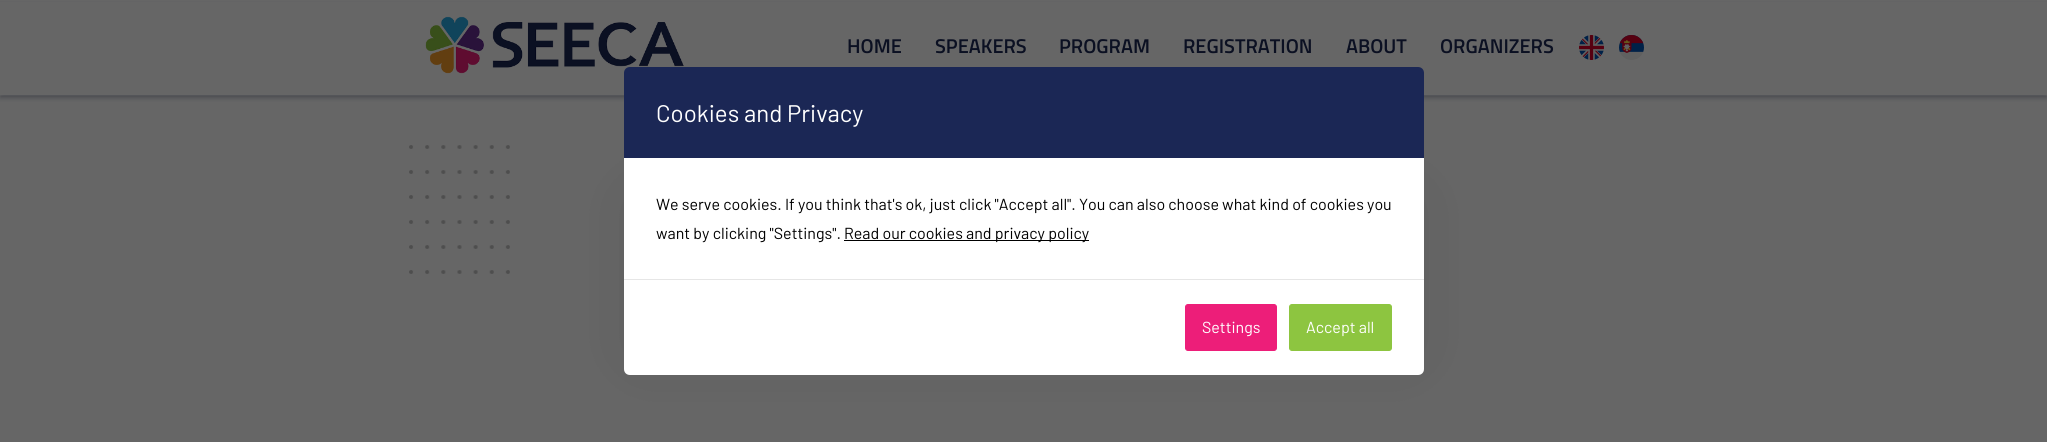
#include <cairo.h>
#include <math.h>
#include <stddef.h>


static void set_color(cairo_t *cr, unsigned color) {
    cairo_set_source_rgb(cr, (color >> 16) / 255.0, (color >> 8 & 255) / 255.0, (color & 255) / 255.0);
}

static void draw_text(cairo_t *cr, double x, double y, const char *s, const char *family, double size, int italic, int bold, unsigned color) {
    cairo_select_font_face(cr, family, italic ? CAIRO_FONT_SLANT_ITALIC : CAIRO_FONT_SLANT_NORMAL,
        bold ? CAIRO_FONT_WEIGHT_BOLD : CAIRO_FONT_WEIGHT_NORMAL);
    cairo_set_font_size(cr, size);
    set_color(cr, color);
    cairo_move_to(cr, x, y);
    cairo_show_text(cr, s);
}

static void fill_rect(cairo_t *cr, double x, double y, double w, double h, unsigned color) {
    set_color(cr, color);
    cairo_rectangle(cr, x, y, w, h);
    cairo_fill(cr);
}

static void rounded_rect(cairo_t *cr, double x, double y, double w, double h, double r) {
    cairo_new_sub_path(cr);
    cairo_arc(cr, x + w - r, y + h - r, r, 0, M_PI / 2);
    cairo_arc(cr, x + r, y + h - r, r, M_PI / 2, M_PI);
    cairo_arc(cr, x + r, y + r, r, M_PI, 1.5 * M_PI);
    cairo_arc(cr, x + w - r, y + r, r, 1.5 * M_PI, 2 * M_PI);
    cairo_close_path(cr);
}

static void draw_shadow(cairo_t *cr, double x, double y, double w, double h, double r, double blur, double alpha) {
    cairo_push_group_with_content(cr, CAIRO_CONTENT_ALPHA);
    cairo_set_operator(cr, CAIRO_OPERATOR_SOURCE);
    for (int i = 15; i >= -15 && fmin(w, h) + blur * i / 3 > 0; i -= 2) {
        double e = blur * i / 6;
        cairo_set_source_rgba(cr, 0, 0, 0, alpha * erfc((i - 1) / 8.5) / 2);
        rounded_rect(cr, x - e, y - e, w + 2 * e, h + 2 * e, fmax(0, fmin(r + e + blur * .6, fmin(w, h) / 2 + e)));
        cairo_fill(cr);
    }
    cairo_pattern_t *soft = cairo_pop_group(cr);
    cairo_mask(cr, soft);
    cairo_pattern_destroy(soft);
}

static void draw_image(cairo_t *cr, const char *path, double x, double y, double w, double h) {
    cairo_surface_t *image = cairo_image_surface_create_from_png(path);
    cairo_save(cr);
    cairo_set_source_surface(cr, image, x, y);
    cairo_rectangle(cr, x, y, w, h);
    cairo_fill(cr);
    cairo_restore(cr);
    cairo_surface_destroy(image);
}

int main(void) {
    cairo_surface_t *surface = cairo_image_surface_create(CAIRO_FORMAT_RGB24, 2047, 442);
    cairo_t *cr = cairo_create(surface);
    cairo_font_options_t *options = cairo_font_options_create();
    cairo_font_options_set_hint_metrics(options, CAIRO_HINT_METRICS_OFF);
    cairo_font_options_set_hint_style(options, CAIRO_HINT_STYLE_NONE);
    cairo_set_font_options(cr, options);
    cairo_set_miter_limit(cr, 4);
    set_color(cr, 0x666666);
    cairo_paint(cr);
    draw_image(cr, "assets/img4.png", 0, 96, 2047, 2);
    set_color(cr, 0x0B1022);
    draw_shadow(cr, 0, 4, 2047, 95, 0, 2, 0.2);
    fill_rect(cr, 0, 2, 2047, 93, 0x666666);
    draw_image(cr, "assets/img1.png", 425, 16, 259, 58);
    draw_text(cr, 847, 53, "HOME", "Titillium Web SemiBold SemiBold", 20, 0, 0, 0x0B1022);
    draw_text(cr, 935, 53, "SPEAKERS", "Titillium Web SemiBold SemiBold", 20, 0, 0, 0x0B1022);
    draw_text(cr, 1059, 53, "PROGRAM", "Titillium Web SemiBold SemiBold", 20, 0, 0, 0x0B1022);
    draw_text(cr, 1183, 53, "REGISTRATION", "Titillium Web SemiBold SemiBold", 20, 0, 0, 0x0B1022);
    draw_text(cr, 1346, 53, "ABOUT", "Titillium Web SemiBold SemiBold", 20, 0, 0, 0x0B1022);
    draw_text(cr, 1440, 53, "ORGANIZERS", "Titillium Web SemiBold SemiBold", 20, 0, 0, 0x0B1022);
    draw_image(cr, "assets/img2.png", 1579, 35, 25, 25);
    draw_image(cr, "assets/img3.png", 1619, 35, 25, 25);
    draw_image(cr, "assets/img5.png", 409, 145, 101, 129);
    set_color(cr, 0x000000);
    draw_shadow(cr, 634, 195, 780, 162, 6, 30, 0.1);
    set_color(cr, 0x1B2755);
    cairo_new_path(cr);
    cairo_move_to(cr, 630, 67);
    cairo_line_to(cr, 1418, 67);
    cairo_curve_to(cr, 1421.5, 67, 1424, 69.5, 1424, 73);
    cairo_line_to(cr, 1424, 158);
    cairo_line_to(cr, 624, 158);
    cairo_line_to(cr, 624, 73);
    cairo_curve_to(cr, 624, 69.5, 626.5, 67, 630, 67);
    cairo_close_path(cr);
    cairo_fill(cr);
    draw_text(cr, 656, 122, "Cookies and Privacy", "Barlow", 24, 0, 0, 0xFFFFFF);
    fill_rect(cr, 624, 158, 800, 121, 0xFFFFFF);
    draw_text(cr, 656, 210, "We serve cookies. If you think that's ok, just click \"Accept all\". You can also choose what kind of cookies you", "Barlow", 16, 0, 0, 0x000000);
    draw_text(cr, 656, 239, "want by clicking \"Settings\".", "Barlow", 16, 0, 0, 0x000000);
    fill_rect(cr, 844, 240, 245, 1, 0x000000);
    draw_text(cr, 844, 239, "Read our cookies and privacy policy", "Barlow", 16, 0, 0, 0x000000);
    set_color(cr, 0xFFFFFF);
    cairo_new_path(cr);
    cairo_move_to(cr, 624, 279);
    cairo_line_to(cr, 1424, 279);
    cairo_line_to(cr, 1424, 369);
    cairo_curve_to(cr, 1424, 372.5, 1421.5, 375, 1418, 375);
    cairo_line_to(cr, 630, 375);
    cairo_curve_to(cr, 626.5, 375, 624, 372.5, 624, 369);
    cairo_close_path(cr);
    cairo_fill(cr);
    fill_rect(cr, 624, 279, 800, 1, 0xE6E6E6);
    set_color(cr, 0xED1E79);
    rounded_rect(cr, 1185.5, 304.5, 91, 46, 2.5);
    cairo_fill_preserve(cr);
    cairo_set_line_width(cr, 1);
    cairo_stroke(cr);
    draw_text(cr, 1202, 333, "Settings", "Barlow", 16, 0, 0, 0xFFFFFF);
    set_color(cr, 0x8DC540);
    rounded_rect(cr, 1289.5, 304.5, 102, 46, 2.5);
    cairo_fill_preserve(cr);
    cairo_stroke(cr);
    draw_text(cr, 1306, 333, "Accept all", "Barlow", 16, 0, 0, 0xFFFFFF);
    cairo_surface_write_to_png(surface, "output.png");
    cairo_font_options_destroy(options);
    cairo_destroy(cr);
    cairo_surface_destroy(surface);
    return 0;
}
